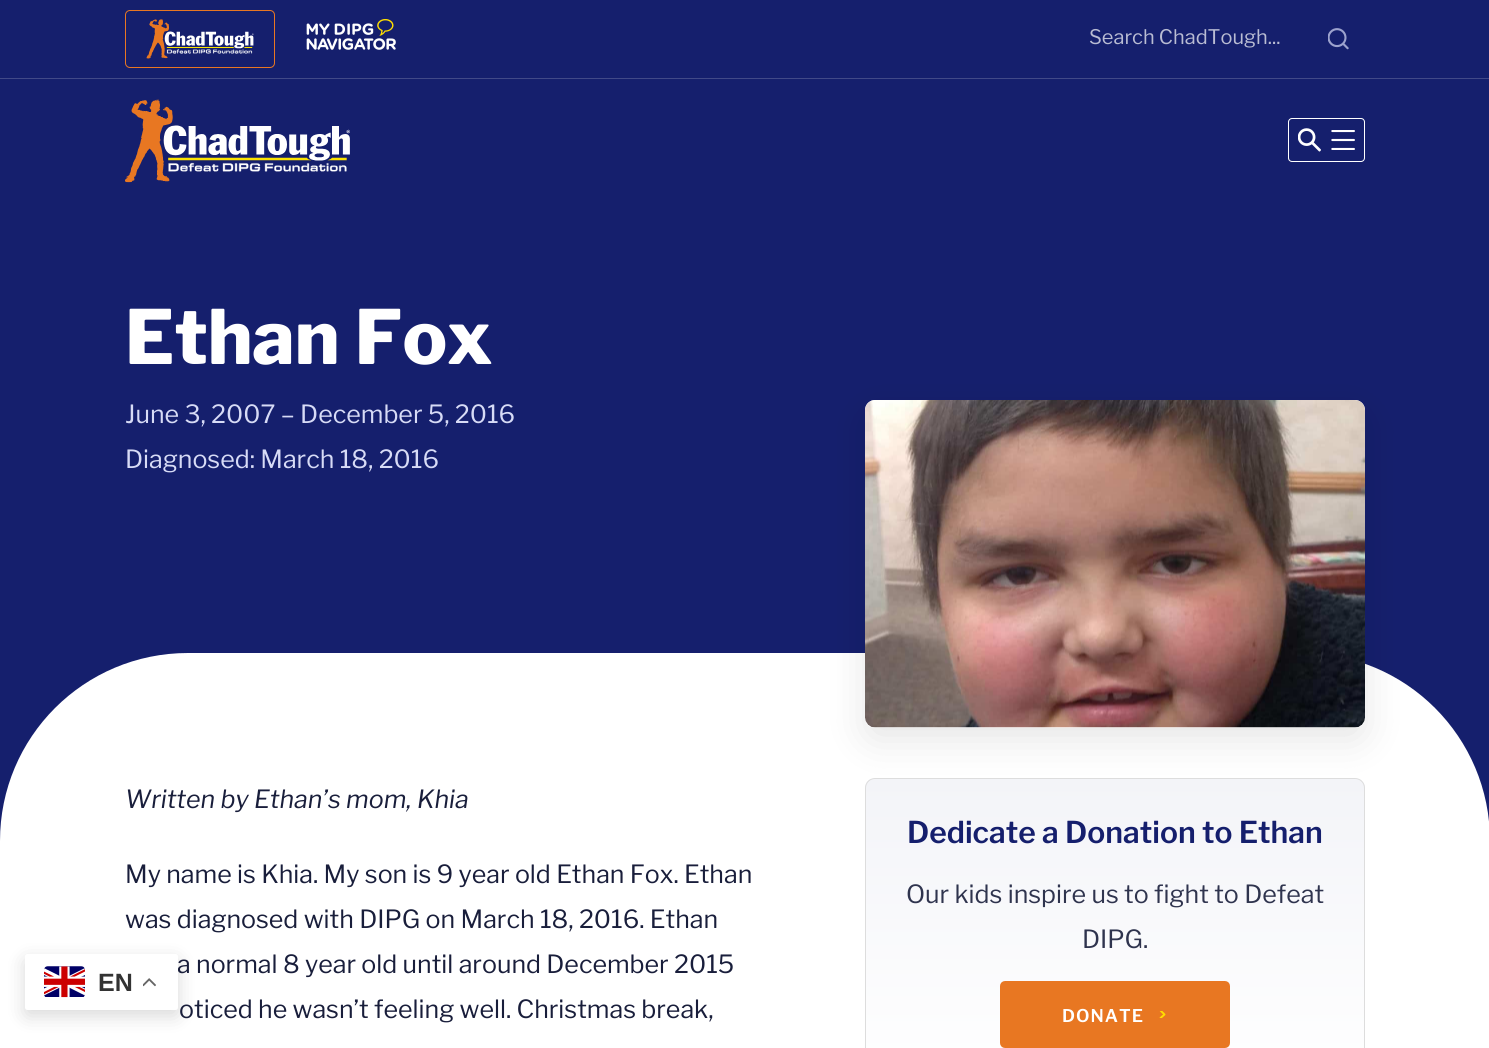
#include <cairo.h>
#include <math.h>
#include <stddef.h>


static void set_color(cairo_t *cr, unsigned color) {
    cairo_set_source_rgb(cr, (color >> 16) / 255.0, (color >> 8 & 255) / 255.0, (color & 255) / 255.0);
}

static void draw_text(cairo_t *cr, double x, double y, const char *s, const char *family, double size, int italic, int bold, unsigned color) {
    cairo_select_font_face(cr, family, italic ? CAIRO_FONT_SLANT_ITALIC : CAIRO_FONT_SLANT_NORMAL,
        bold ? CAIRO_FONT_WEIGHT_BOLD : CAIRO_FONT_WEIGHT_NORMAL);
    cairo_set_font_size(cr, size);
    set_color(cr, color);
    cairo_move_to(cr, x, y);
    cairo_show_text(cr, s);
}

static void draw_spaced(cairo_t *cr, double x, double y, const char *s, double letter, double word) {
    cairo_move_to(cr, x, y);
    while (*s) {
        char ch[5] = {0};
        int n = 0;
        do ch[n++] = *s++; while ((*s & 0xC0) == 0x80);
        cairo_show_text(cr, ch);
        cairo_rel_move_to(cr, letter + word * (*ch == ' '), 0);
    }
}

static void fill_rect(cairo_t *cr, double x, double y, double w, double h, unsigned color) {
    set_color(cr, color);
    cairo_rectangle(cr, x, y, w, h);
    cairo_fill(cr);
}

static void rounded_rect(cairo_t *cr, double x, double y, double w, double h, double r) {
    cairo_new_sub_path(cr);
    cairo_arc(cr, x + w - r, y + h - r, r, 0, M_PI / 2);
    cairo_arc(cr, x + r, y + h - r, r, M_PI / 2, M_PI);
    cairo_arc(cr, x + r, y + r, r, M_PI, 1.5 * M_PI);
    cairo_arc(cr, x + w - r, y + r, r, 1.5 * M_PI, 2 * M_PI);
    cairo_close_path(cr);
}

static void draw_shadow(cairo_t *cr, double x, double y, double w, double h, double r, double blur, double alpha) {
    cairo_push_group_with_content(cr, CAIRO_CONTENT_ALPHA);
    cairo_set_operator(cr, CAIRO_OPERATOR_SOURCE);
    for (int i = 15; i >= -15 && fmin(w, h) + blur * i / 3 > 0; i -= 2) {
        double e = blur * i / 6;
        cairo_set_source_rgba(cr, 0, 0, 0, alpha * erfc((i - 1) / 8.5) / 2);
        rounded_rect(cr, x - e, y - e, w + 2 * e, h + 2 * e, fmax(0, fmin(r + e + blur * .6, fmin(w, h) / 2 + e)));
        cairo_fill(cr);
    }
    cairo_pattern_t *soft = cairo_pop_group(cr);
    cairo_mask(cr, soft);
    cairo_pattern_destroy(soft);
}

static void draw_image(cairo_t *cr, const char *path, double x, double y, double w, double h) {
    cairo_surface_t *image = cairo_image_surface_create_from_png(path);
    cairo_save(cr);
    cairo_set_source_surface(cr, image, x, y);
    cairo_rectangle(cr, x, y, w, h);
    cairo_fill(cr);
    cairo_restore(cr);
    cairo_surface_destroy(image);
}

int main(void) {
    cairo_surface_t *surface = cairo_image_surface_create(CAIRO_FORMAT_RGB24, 1489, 1048);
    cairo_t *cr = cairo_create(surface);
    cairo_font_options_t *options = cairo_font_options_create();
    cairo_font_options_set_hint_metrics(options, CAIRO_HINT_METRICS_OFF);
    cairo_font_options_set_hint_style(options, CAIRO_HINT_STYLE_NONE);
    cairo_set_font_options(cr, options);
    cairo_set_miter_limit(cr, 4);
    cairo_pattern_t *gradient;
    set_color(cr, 0x151F6D);
    cairo_paint(cr);
    fill_rect(cr, 0, 78, 1489, 1, 0x414988);
    rounded_rect(cr, 125.5, 10.5, 149, 57, 4.5);
    set_color(cr, 0xE87722);
    cairo_set_line_width(cr, 1);
    cairo_stroke(cr);
    draw_image(cr, "assets/img1.png", 146, 19, 108, 40);
    draw_image(cr, "assets/img2.png", 306, 19, 90, 31);
    draw_text(cr, 1089, 44, "Search ChadTough...", "Libre Franklin", 20, 0, 0, 0xB9BCD3);
    draw_image(cr, "assets/img3.png", 1328, 28, 21, 22);
    draw_image(cr, "assets/img4.png", 125, 99, 225, 84);
    draw_image(cr, "assets/img5.png", 1288, 118, 77, 44);
    set_color(cr, 0xFFFFFF);
    cairo_new_path(cr);
    cairo_move_to(cr, 188, 653);
    cairo_line_to(cr, 1302, 653);
    cairo_curve_to(cr, 1406, 653, 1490, 737, 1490, 841);
    cairo_line_to(cr, 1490, 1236);
    cairo_line_to(cr, 0, 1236);
    cairo_line_to(cr, 0, 841);
    cairo_curve_to(cr, 0, 737, 84, 653, 188, 653);
    cairo_close_path(cr);
    cairo_fill(cr);
    set_color(cr, 0x000000);
    draw_shadow(cr, 25, 960, 153, 56, 2.5, 9.5, 0.15);
    draw_text(cr, 177, 973, "a normal 8 year old until around December 2015", "Libre Franklin", 25, 0, 0, 0x191E3B);
    set_color(cr, 0xFFFFFF);
    rounded_rect(cr, 25, 954, 153, 56, 2.5);
    cairo_fill(cr);
    draw_image(cr, "assets/img6.png", 44, 966, 41, 32);
    draw_text(cr, 98, 991, "EN", "Liberation Sans", 25, 0, 1, 0x333333);
    draw_image(cr, "assets/img7.png", 143, 978, 13, 9);
    draw_text(cr, 125, 364, "Ethan Fox", "Libre Franklin ExtraBold", 74.5, 0, 0, 0xFFFFFF);
    draw_text(cr, 125, 423, "June 3, 2007 – December 5, 2016", "Libre Franklin", 25, 0, 0, 0xD7DBF6);
    draw_text(cr, 125, 468, "Diagnosed: March 18, 2016", "Libre Franklin", 25, 0, 0, 0xD7DBF6);
    cairo_save(cr);
    rounded_rect(cr, 865, 778, 500, 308, 10);
    cairo_clip(cr);
    gradient = cairo_pattern_create_linear(1115, 779, 1115, 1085);
    cairo_pattern_add_color_stop_rgba(gradient, 0, 0.953, 0.957, 0.973, 1);
    cairo_pattern_add_color_stop_rgba(gradient, 1, 1, 1, 1, 1);
    cairo_set_source(cr, gradient);
    cairo_pattern_destroy(gradient);
    cairo_rectangle(cr, 865, 779, 500, 269);
    cairo_fill(cr);
    cairo_restore(cr);
    rounded_rect(cr, 865.5, 778.5, 499, 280, 9.5);
    set_color(cr, 0xDDDDDD);
    cairo_stroke(cr);
    set_color(cr, 0x000000);
    draw_shadow(cr, 865, 413, 500, 327, 10, 19, 0.1);
    set_color(cr, 0xFFFFFF);
    rounded_rect(cr, 865, 400, 500, 328, 10);
    cairo_fill(cr);
    draw_image(cr, "assets/img8.png", 865, 400, 500, 328);
    draw_text(cr, 125, 808, "Written by Ethan’s mom, Khia", "Libre Franklin", 25, 1, 0, 0x191E3B);
    draw_text(cr, 125, 883, "My name is Khia. My son is 9 year old Ethan Fox. Ethan", "Libre Franklin", 25, 0, 0, 0x191E3B);
    draw_text(cr, 125, 928, "was diagnosed with DIPG on March 18, 2016. Ethan", "Libre Franklin", 25, 0, 0, 0x191E3B);
    draw_text(cr, 179, 1018, "oticed he wasn’t feeling well. Christmas break,", "Libre Franklin", 25, 0, 0, 0x191E3B);
    draw_text(cr, 907, 843, "Dedicate a Donation to Ethan", "Libre Franklin SemiBold", 30, 0, 0, 0x151F6D);
    draw_text(cr, 906, 903, "Our kids inspire us to fight to Defeat", "Libre Franklin", 25, 0, 0, 0x2F344E);
    draw_text(cr, 1082, 948, "DIPG.", "Libre Franklin", 25, 0, 0, 0x2F344E);
    set_color(cr, 0xE87722);
    rounded_rect(cr, 1001.5, 982.5, 227, 64, 3.5);
    cairo_fill_preserve(cr);
    cairo_set_line_width(cr, 3);
    cairo_stroke(cr);
    cairo_select_font_face(cr, "Libre Franklin SemiBold", CAIRO_FONT_SLANT_NORMAL, CAIRO_FONT_WEIGHT_NORMAL);
    cairo_set_font_size(cr, 17.5);
    set_color(cr, 0xFFFFFF);
    draw_spaced(cr, 1062, 1022, "DONATE", 1, 0);
    cairo_save(cr);
    cairo_rectangle(cr, 1158, 1011, 10, 7);
    cairo_clip(cr);
    cairo_new_path(cr);
    cairo_move_to(cr, 1160.5, 1018);
    cairo_line_to(cr, 1164.5, 1014.5);
    cairo_line_to(cr, 1160.5, 1010.5);
    set_color(cr, 0xFFDE00);
    cairo_set_line_width(cr, 1.9);
    cairo_set_line_cap(cr, CAIRO_LINE_CAP_ROUND);
    cairo_set_line_join(cr, CAIRO_LINE_JOIN_ROUND);
    cairo_stroke(cr);
    cairo_restore(cr);
    cairo_surface_write_to_png(surface, "output.png");
    cairo_font_options_destroy(options);
    cairo_destroy(cr);
    cairo_surface_destroy(surface);
    return 0;
}
